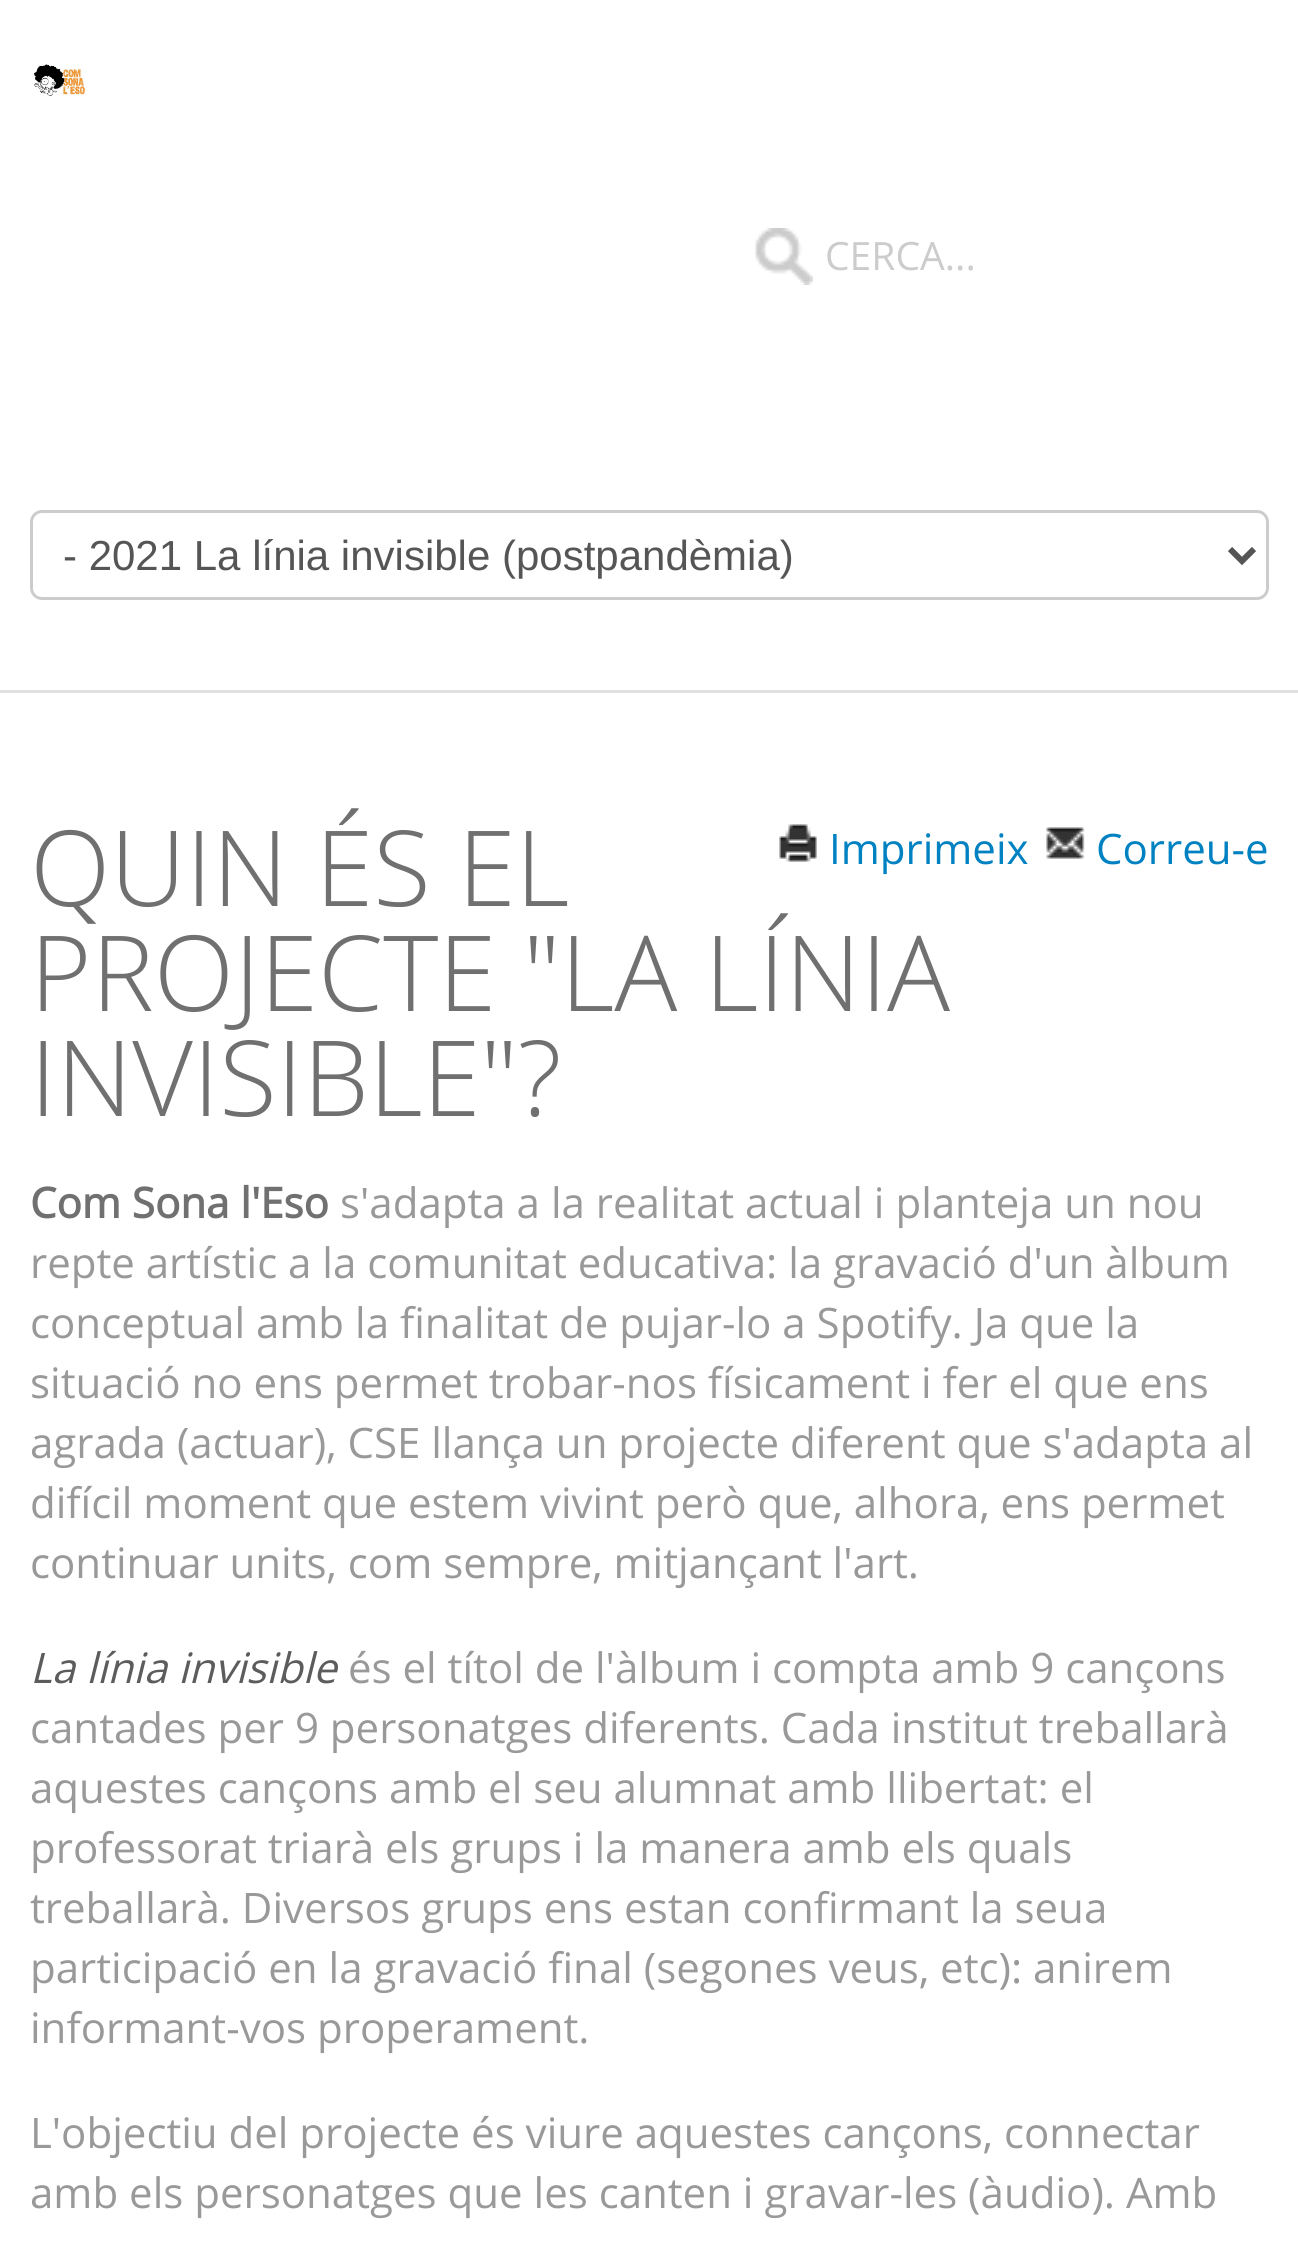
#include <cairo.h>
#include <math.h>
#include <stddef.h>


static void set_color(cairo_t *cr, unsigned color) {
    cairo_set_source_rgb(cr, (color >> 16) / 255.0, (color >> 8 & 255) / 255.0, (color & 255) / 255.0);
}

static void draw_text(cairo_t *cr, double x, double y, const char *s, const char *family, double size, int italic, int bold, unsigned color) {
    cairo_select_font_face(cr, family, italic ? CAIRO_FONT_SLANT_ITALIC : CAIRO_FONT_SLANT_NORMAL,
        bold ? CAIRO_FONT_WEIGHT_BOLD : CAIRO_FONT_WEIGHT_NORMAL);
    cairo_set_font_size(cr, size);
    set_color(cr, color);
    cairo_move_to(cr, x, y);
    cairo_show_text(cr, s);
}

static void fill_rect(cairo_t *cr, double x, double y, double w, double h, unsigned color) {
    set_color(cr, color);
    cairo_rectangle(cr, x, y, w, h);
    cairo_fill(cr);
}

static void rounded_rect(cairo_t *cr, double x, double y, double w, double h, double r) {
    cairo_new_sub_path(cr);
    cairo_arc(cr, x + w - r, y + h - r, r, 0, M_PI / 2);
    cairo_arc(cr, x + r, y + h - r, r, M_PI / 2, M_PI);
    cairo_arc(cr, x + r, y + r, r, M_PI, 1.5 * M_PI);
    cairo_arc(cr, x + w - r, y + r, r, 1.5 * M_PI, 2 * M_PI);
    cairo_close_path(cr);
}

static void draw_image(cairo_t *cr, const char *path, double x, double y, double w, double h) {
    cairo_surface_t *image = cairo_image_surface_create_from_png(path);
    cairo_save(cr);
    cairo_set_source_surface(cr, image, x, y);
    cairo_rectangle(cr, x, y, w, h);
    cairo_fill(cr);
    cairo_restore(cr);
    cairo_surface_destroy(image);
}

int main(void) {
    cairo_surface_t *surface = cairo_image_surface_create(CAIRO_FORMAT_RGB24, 1298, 2251);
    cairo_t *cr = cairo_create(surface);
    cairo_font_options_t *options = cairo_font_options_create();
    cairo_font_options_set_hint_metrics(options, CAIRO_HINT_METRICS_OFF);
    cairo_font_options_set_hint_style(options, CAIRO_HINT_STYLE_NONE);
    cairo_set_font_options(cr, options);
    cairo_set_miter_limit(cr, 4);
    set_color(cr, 0xFFFFFF);
    cairo_paint(cr);
    fill_rect(cr, 0, 690, 1298, 3, 0xE0E0E0);
    draw_image(cr, "assets/img1.png", 33, 64, 52, 32);
    draw_image(cr, "assets/img2.png", 755, 228, 58, 57);
    draw_text(cr, 825, 270, "CERCA...", "Open Sans", 39, 0, 0, 0xCCCCCC);
    rounded_rect(cr, 31.5, 511.5, 1236, 87, 10.5);
    cairo_set_line_width(cr, 3);
    cairo_stroke(cr);
    cairo_new_path(cr);
    cairo_move_to(cr, 1230, 549);
    cairo_line_to(cr, 1242, 561);
    cairo_line_to(cr, 1254, 549);
    set_color(cr, 0x555555);
    cairo_set_line_width(cr, 6);
    cairo_stroke(cr);
    draw_text(cr, 63, 570, "- 2021 La línia invisible (postpandèmia)", "Liberation Sans", 42, 0, 0, 0x555555);
    draw_text(cr, 30, 906, "QUIN ÉS EL", "Open Sans Light", 105, 0, 0, 0x707070);
    draw_text(cr, 30, 1011, "PROJECTE \"LA LÍNIA", "Open Sans Light", 105, 0, 0, 0x707070);
    draw_text(cr, 30, 1116, "INVISIBLE\"?", "Open Sans Light", 105, 0, 0, 0x707070);
    draw_image(cr, "assets/img3.png", 779, 824, 38, 38);
    draw_text(cr, 829, 864, "Imprimeix", "Open Sans", 42, 0, 0, 0x0081C1);
    draw_image(cr, "assets/img4.png", 1046, 827, 39, 32);
    draw_text(cr, 1096, 864, "Correu-e", "Open Sans", 42, 0, 0, 0x0081C1);
    draw_text(cr, 30, 1218, "Com Sona l'Eso", "Open Sans", 42, 0, 1, 0x707070);
    draw_text(cr, 340, 1218, "s'adapta a la realitat actual i planteja un nou", "Open Sans", 42, 0, 0, 0x999999);
    draw_text(cr, 30, 1278, "repte artístic a la comunitat educativa: la gravació d'un àlbum", "Open Sans", 42, 0, 0, 0x999999);
    draw_text(cr, 30, 1338, "conceptual amb la finalitat de pujar-lo a Spotify. Ja que la", "Open Sans", 42, 0, 0, 0x999999);
    draw_text(cr, 30, 1398, "situació no ens permet trobar-nos físicament i fer el que ens", "Open Sans", 42, 0, 0, 0x999999);
    draw_text(cr, 30, 1458, "agrada (actuar), CSE llança un projecte diferent que s'adapta al", "Open Sans", 42, 0, 0, 0x999999);
    draw_text(cr, 30, 1518, "difícil moment que estem vivint però que, alhora, ens permet", "Open Sans", 42, 0, 0, 0x999999);
    draw_text(cr, 30, 1578, "continuar units, com sempre, mitjançant l'art.", "Open Sans", 42, 0, 0, 0x999999);
    draw_text(cr, 30, 1683, "La línia invisible", "Open Sans", 42, 1, 0, 0x5C5C5C);
    draw_text(cr, 348, 1683, "és el títol de l'àlbum i compta amb 9 cançons", "Open Sans", 42, 0, 0, 0x999999);
    draw_text(cr, 30, 1743, "cantades per 9 personatges diferents. Cada institut treballarà", "Open Sans", 42, 0, 0, 0x999999);
    draw_text(cr, 30, 1803, "aquestes cançons amb el seu alumnat amb llibertat: el", "Open Sans", 42, 0, 0, 0x999999);
    draw_text(cr, 30, 1863, "professorat triarà els grups i la manera amb els quals", "Open Sans", 42, 0, 0, 0x999999);
    draw_text(cr, 30, 1923, "treballarà. Diversos grups ens estan confirmant la seua", "Open Sans", 42, 0, 0, 0x999999);
    draw_text(cr, 30, 1983, "participació en la gravació final (segones veus, etc): anirem", "Open Sans", 42, 0, 0, 0x999999);
    draw_text(cr, 30, 2043, "informant-vos properament.", "Open Sans", 42, 0, 0, 0x999999);
    draw_text(cr, 30, 2148, "L'objectiu del projecte és viure aquestes cançons, connectar", "Open Sans", 42, 0, 0, 0x999999);
    draw_text(cr, 30, 2208, "amb els personatges que les canten i gravar-les (àudio). Amb", "Open Sans", 42, 0, 0, 0x999999);
    cairo_surface_write_to_png(surface, "output.png");
    cairo_font_options_destroy(options);
    cairo_destroy(cr);
    cairo_surface_destroy(surface);
    return 0;
}
